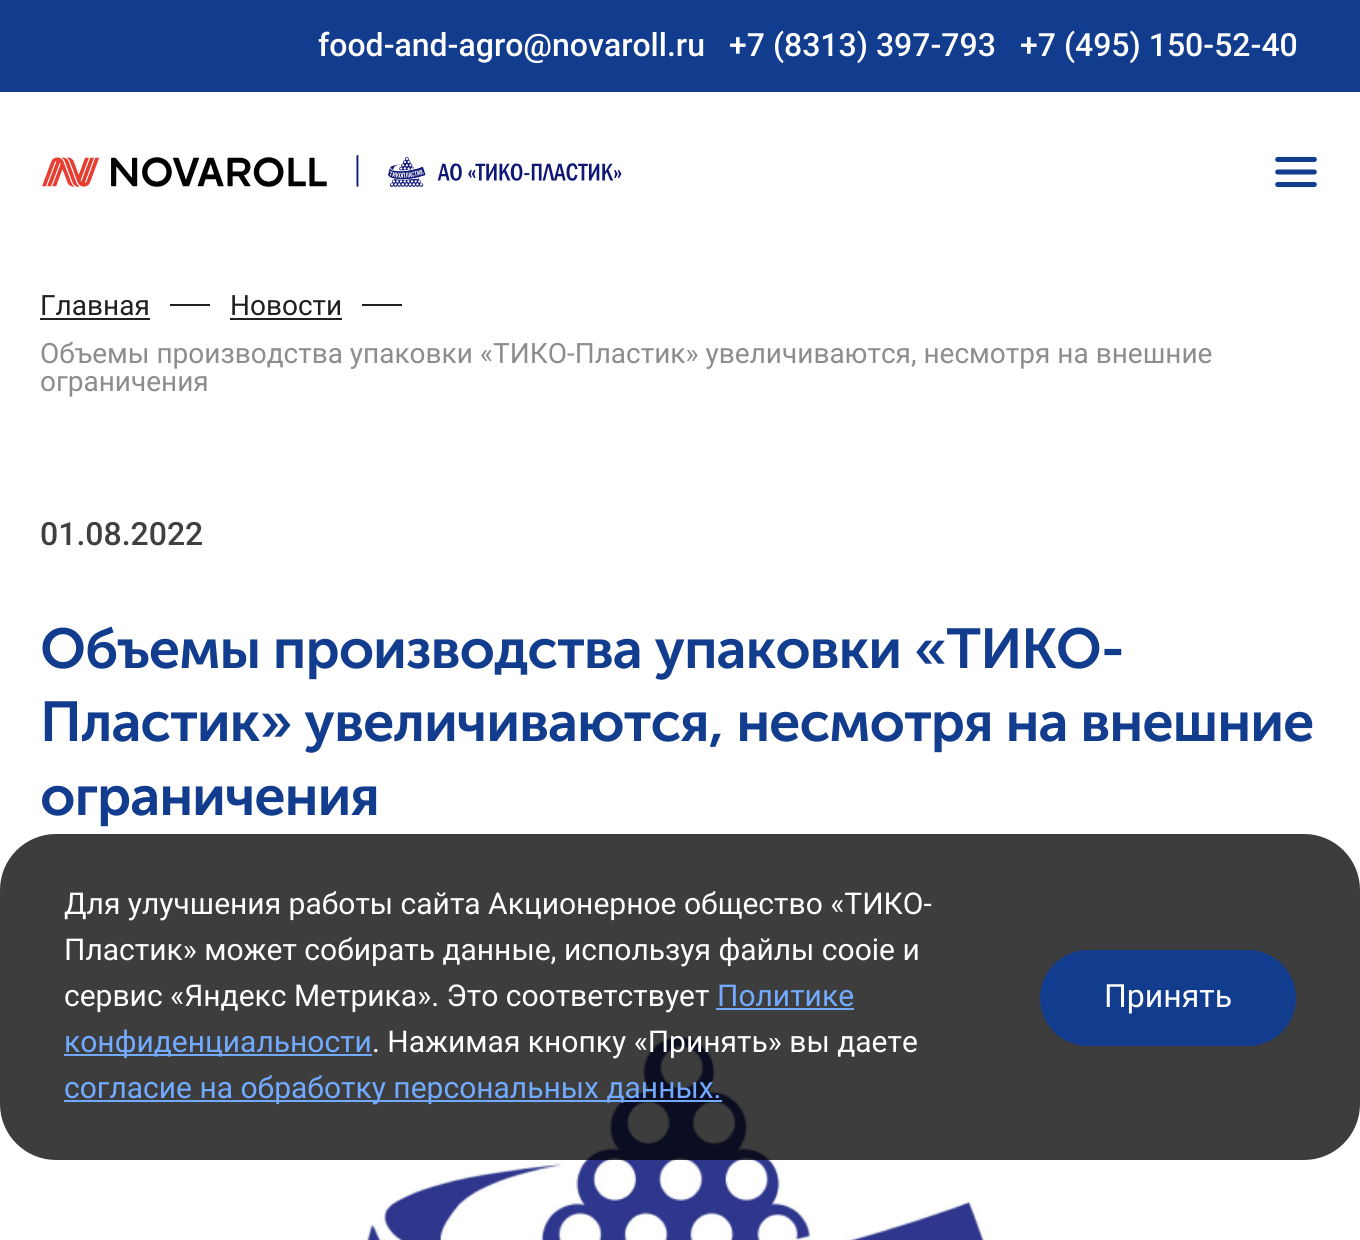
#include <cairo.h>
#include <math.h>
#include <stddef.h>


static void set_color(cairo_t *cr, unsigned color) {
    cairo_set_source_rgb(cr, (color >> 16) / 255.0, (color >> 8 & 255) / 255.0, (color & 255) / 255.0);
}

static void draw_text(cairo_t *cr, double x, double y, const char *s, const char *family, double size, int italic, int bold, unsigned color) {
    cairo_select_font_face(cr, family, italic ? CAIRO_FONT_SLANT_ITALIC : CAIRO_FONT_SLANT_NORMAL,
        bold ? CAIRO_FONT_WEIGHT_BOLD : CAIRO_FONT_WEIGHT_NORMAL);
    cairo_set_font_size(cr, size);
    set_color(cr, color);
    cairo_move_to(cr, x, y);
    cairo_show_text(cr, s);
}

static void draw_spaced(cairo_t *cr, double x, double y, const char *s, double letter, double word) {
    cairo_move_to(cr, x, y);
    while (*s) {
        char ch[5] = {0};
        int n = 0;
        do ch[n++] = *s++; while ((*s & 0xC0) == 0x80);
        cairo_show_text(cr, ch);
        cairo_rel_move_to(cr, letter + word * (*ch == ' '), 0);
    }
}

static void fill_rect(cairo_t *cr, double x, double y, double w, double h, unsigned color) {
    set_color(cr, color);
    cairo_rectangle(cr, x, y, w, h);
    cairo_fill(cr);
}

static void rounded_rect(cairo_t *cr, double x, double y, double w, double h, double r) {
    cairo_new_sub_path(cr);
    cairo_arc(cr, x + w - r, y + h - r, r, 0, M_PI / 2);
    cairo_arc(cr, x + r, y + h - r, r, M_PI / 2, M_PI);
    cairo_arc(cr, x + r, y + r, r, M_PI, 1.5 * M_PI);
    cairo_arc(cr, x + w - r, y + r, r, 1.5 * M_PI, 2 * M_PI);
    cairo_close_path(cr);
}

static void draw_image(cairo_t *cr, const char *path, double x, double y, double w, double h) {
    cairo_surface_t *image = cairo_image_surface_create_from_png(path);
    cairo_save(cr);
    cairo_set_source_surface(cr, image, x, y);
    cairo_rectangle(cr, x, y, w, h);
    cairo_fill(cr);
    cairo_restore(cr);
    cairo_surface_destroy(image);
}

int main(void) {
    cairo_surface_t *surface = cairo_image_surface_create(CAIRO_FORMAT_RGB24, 1360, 1240);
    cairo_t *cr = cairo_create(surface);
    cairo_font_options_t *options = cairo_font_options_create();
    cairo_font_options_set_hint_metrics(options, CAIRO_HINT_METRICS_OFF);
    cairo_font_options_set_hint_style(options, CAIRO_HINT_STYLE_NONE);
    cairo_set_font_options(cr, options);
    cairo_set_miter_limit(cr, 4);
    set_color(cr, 0xFFFFFF);
    cairo_paint(cr);
    fill_rect(cr, 0, 0, 1360, 92, 0x123C8D);
    draw_text(cr, 318, 56, "food-and-agro@novaroll.ru", "Roboto Medium", 32, 0, 0, 0xFFFFFF);
    draw_text(cr, 729, 56, "+7 (8313) 397-793", "Roboto Medium", 32, 0, 0, 0xFFFFFF);
    draw_text(cr, 1020, 56, "+7 (495) 150-52-40", "Roboto Medium", 32, 0, 0, 0xFFFFFF);
    draw_image(cr, "assets/img1.png", 42, 155, 580, 32);
    draw_image(cr, "assets/img2.png", 1275, 156, 42, 32);
    draw_text(cr, 40, 315, "Главная", "Roboto", 28, 0, 0, 0x202020);
    fill_rect(cr, 40, 318, 110, 2, 0x202020);
    fill_rect(cr, 170, 304, 40, 2, 0x202020);
    draw_text(cr, 230, 315, "Новости", "Roboto", 28, 0, 0, 0x202020);
    fill_rect(cr, 230, 318, 112, 2, 0x202020);
    fill_rect(cr, 362, 304, 40, 2, 0x202020);
    draw_text(cr, 40, 363, "Объемы производства упаковки «ТИКО-Пластик» увеличиваются, несмотря на внешние", "Roboto", 28, 0, 0, 0x8D8D8D);
    draw_text(cr, 40, 391, "ограничения", "Roboto", 28, 0, 0, 0x8D8D8D);
    draw_text(cr, 40, 545, "01.08.2022", "Roboto Medium", 32, 0, 0, 0x404040);
    cairo_select_font_face(cr, "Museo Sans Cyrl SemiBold", CAIRO_FONT_SLANT_NORMAL, CAIRO_FONT_WEIGHT_NORMAL);
    cairo_set_font_size(cr, 56);
    set_color(cr, 0x123C8D);
    draw_spaced(cr, 40, 668, "Объемы производства упаковки «ТИКО-", -1.1, 0);
    draw_spaced(cr, 40, 741, "Пластик» увеличиваются, несмотря на внешние", -1.1, 0);
    draw_spaced(cr, 40, 815, "ограничения", -1.1, 0);
    draw_image(cr, "assets/img3.png", 367, 1033, 619, 207);
    cairo_set_source_rgba(cr, 0, 0, 0, 0.76);
    rounded_rect(cr, 0, 834, 1360, 326, 56);
    cairo_fill(cr);
    draw_text(cr, 64, 914, "Для улучшения работы сайта Акционерное общество «ТИКО-", "Roboto", 30, 0, 0, 0xFFFFFF);
    draw_text(cr, 64, 960, "Пластик» может собирать данные, используя файлы сооіе и", "Roboto", 30, 0, 0, 0xFFFFFF);
    draw_text(cr, 64, 1006, "сервис «Яндекс Метрика». Это соответствует", "Roboto", 30, 0, 0, 0xFFFFFF);
    draw_text(cr, 717, 1006, "Политике", "Roboto", 30, 0, 0, 0x72AAFF);
    fill_rect(cr, 716, 1008, 138, 2, 0x72AAFF);
    fill_rect(cr, 64, 1054, 308, 2, 0x72AAFF);
    draw_text(cr, 64, 1052, "конфиденциальности", "Roboto", 30, 0, 0, 0x72AAFF);
    draw_text(cr, 372, 1052, ". Нажимая кнопку «Принять» вы даете", "Roboto", 30, 0, 0, 0xFFFFFF);
    fill_rect(cr, 64, 1100, 658, 2, 0x72AAFF);
    draw_text(cr, 64, 1098, "согласие на обработку персональных данных.", "Roboto", 30, 0, 0, 0x72AAFF);
    set_color(cr, 0x123C8D);
    rounded_rect(cr, 1040, 950, 256, 96, 48);
    cairo_fill(cr);
    draw_text(cr, 1104, 1007, "Принять", "Roboto", 32, 0, 0, 0xFFFFFF);
    cairo_surface_write_to_png(surface, "output.png");
    cairo_font_options_destroy(options);
    cairo_destroy(cr);
    cairo_surface_destroy(surface);
    return 0;
}
